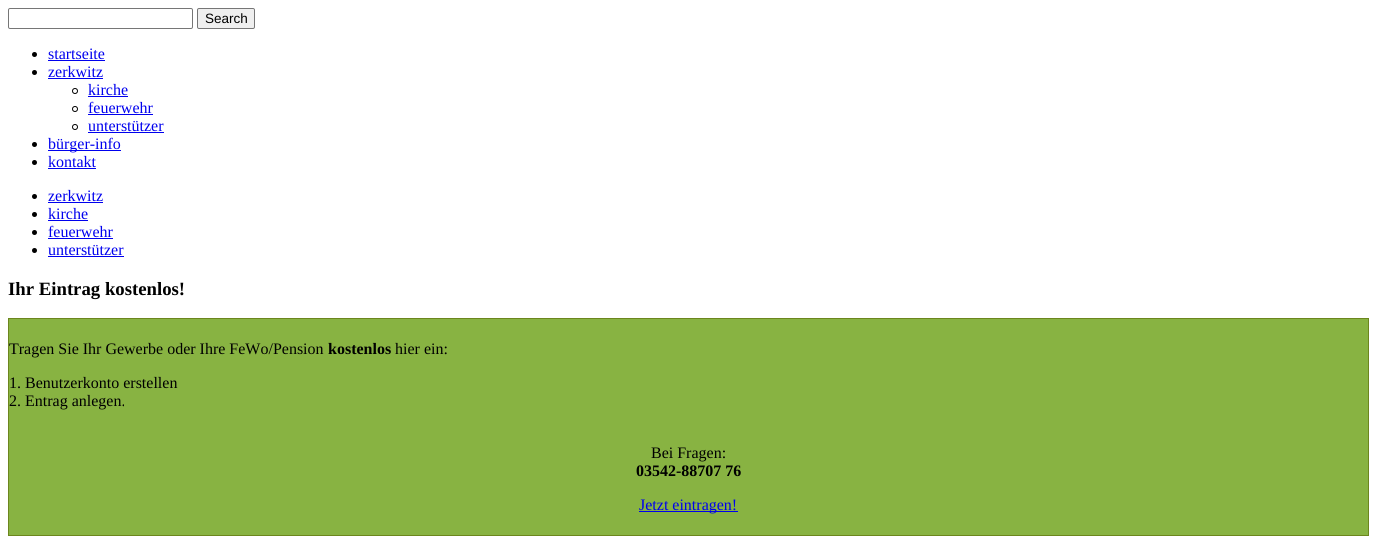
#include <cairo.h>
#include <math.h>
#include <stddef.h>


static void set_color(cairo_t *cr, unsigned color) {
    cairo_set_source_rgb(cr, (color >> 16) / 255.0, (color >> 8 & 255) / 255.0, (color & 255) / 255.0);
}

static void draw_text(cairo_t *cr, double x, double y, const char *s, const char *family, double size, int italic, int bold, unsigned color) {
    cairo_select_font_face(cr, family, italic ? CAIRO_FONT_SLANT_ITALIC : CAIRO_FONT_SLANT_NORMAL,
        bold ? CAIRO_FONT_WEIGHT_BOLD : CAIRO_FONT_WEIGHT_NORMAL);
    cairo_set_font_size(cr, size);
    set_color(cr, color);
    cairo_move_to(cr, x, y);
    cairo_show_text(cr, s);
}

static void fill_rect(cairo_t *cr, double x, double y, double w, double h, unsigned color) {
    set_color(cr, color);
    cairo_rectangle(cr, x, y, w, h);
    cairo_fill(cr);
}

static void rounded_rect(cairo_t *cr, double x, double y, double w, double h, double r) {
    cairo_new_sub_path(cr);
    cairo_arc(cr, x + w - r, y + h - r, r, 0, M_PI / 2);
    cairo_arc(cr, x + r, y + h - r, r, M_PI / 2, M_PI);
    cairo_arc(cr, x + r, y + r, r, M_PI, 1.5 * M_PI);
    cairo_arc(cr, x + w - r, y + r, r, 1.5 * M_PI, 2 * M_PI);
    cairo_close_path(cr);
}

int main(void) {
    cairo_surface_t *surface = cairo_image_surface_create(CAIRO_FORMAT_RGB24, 1377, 543);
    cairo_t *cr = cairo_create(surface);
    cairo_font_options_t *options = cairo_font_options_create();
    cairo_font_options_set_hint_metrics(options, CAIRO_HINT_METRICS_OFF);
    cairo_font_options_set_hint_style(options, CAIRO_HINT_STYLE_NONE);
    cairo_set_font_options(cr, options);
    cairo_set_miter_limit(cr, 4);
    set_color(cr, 0xFFFFFF);
    cairo_paint(cr);
    rounded_rect(cr, 8.5, 8.5, 184, 20, 1.5);
    set_color(cr, 0x767676);
    cairo_set_line_width(cr, 1);
    cairo_stroke(cr);
    set_color(cr, 0xEFEFEF);
    rounded_rect(cr, 197.5, 8.5, 57, 20, 1.5);
    cairo_fill_preserve(cr);
    set_color(cr, 0x767676);
    cairo_stroke(cr);
    draw_text(cr, 205, 23, "Search", "Liberation Sans", 13.5, 0, 0, 0x000000);
    cairo_new_path(cr);
    cairo_arc(cr, 34.5, 54.5, 2.5, 0, 2 * M_PI);
    cairo_fill(cr);
    draw_text(cr, 48, 59, "startseite", "Liberation Serif", 16, 0, 0, 0x0000EE);
    fill_rect(cr, 48, 60, 57, 1, 0x0000EE);
    set_color(cr, 0x000000);
    cairo_new_path(cr);
    cairo_arc(cr, 34.5, 72.5, 2.5, 0, 2 * M_PI);
    cairo_fill(cr);
    draw_text(cr, 48, 77, "zerkwitz", "Liberation Serif", 16, 0, 0, 0x0000EE);
    fill_rect(cr, 48, 78, 55, 1, 0x0000EE);
    cairo_new_path(cr);
    cairo_arc(cr, 75, 91, 2.5, 0, 2 * M_PI);
    set_color(cr, 0x000000);
    cairo_stroke(cr);
    draw_text(cr, 88, 95, "kirche", "Liberation Serif", 16, 0, 0, 0x0000EE);
    fill_rect(cr, 88, 96, 40, 1, 0x0000EE);
    cairo_new_path(cr);
    cairo_arc(cr, 75, 109, 2.5, 0, 2 * M_PI);
    set_color(cr, 0x000000);
    cairo_stroke(cr);
    draw_text(cr, 88, 113, "feuerwehr", "Liberation Serif", 16, 0, 0, 0x0000EE);
    fill_rect(cr, 88, 114, 65, 1, 0x0000EE);
    cairo_new_path(cr);
    cairo_arc(cr, 75, 127, 2.5, 0, 2 * M_PI);
    set_color(cr, 0x000000);
    cairo_stroke(cr);
    draw_text(cr, 88, 131, "unterstützer", "Liberation Serif", 16, 0, 0, 0x0000EE);
    fill_rect(cr, 88, 132, 76, 1, 0x0000EE);
    set_color(cr, 0x000000);
    cairo_new_path(cr);
    cairo_arc(cr, 34.5, 144.5, 2.5, 0, 2 * M_PI);
    cairo_fill(cr);
    fill_rect(cr, 48, 150, 73, 1, 0x0000EE);
    draw_text(cr, 48, 149, "bürger-info", "Liberation Serif", 16, 0, 0, 0x0000EE);
    set_color(cr, 0x000000);
    cairo_new_path(cr);
    cairo_arc(cr, 34.5, 162.5, 2.5, 0, 2 * M_PI);
    cairo_fill(cr);
    draw_text(cr, 48, 167, "kontakt", "Liberation Serif", 16, 0, 0, 0x0000EE);
    fill_rect(cr, 48, 168, 48, 1, 0x0000EE);
    set_color(cr, 0x000000);
    cairo_new_path(cr);
    cairo_arc(cr, 34.5, 196.5, 2.5, 0, 2 * M_PI);
    cairo_fill(cr);
    draw_text(cr, 48, 201, "zerkwitz", "Liberation Serif", 16, 0, 0, 0x0000EE);
    fill_rect(cr, 48, 202, 55, 1, 0x0000EE);
    set_color(cr, 0x000000);
    cairo_new_path(cr);
    cairo_arc(cr, 34.5, 214.5, 2.5, 0, 2 * M_PI);
    cairo_fill(cr);
    draw_text(cr, 48, 219, "kirche", "Liberation Serif", 16, 0, 0, 0x0000EE);
    fill_rect(cr, 48, 220, 40, 1, 0x0000EE);
    set_color(cr, 0x000000);
    cairo_new_path(cr);
    cairo_arc(cr, 34.5, 232.5, 2.5, 0, 2 * M_PI);
    cairo_fill(cr);
    draw_text(cr, 48, 237, "feuerwehr", "Liberation Serif", 16, 0, 0, 0x0000EE);
    fill_rect(cr, 48, 238, 65, 1, 0x0000EE);
    set_color(cr, 0x000000);
    cairo_new_path(cr);
    cairo_arc(cr, 34.5, 250.5, 2.5, 0, 2 * M_PI);
    cairo_fill(cr);
    draw_text(cr, 48, 255, "unterstützer", "Liberation Serif", 16, 0, 0, 0x0000EE);
    fill_rect(cr, 48, 256, 76, 1, 0x0000EE);
    draw_text(cr, 8, 295, "Ihr Eintrag kostenlos!", "Liberation Serif", 18.75, 0, 1, 0x000000);
    set_color(cr, 0x88B342);
    cairo_rectangle(cr, 8.5, 318.5, 1360, 217);
    cairo_fill_preserve(cr);
    set_color(cr, 0x6C861D);
    cairo_stroke(cr);
    draw_text(cr, 9, 354, "Tragen Sie Ihr Gewerbe oder Ihre FeWo/Pension", "Liberation Serif", 16, 0, 0, 0x000000);
    draw_text(cr, 328, 354, "kostenlos", "Liberation Serif", 16, 0, 1, 0x000000);
    draw_text(cr, 395, 354, "hier ein:", "Liberation Serif", 16, 0, 0, 0x000000);
    draw_text(cr, 9, 388, "1. Benutzerkonto erstellen", "Liberation Serif", 16, 0, 0, 0x000000);
    draw_text(cr, 9, 406, "2. Entrag anlegen.", "Liberation Serif", 16, 0, 0, 0x000000);
    draw_text(cr, 651, 458, "Bei Fragen:", "Liberation Serif", 16, 0, 0, 0x000000);
    draw_text(cr, 636, 476, "03542-88707 76", "Liberation Serif", 16, 0, 1, 0x000000);
    fill_rect(cr, 639, 511, 99, 1, 0x0000EE);
    draw_text(cr, 639, 510, "Jetzt eintragen!", "Liberation Serif", 16, 0, 0, 0x0000EE);
    cairo_surface_write_to_png(surface, "output.png");
    cairo_font_options_destroy(options);
    cairo_destroy(cr);
    cairo_surface_destroy(surface);
    return 0;
}
